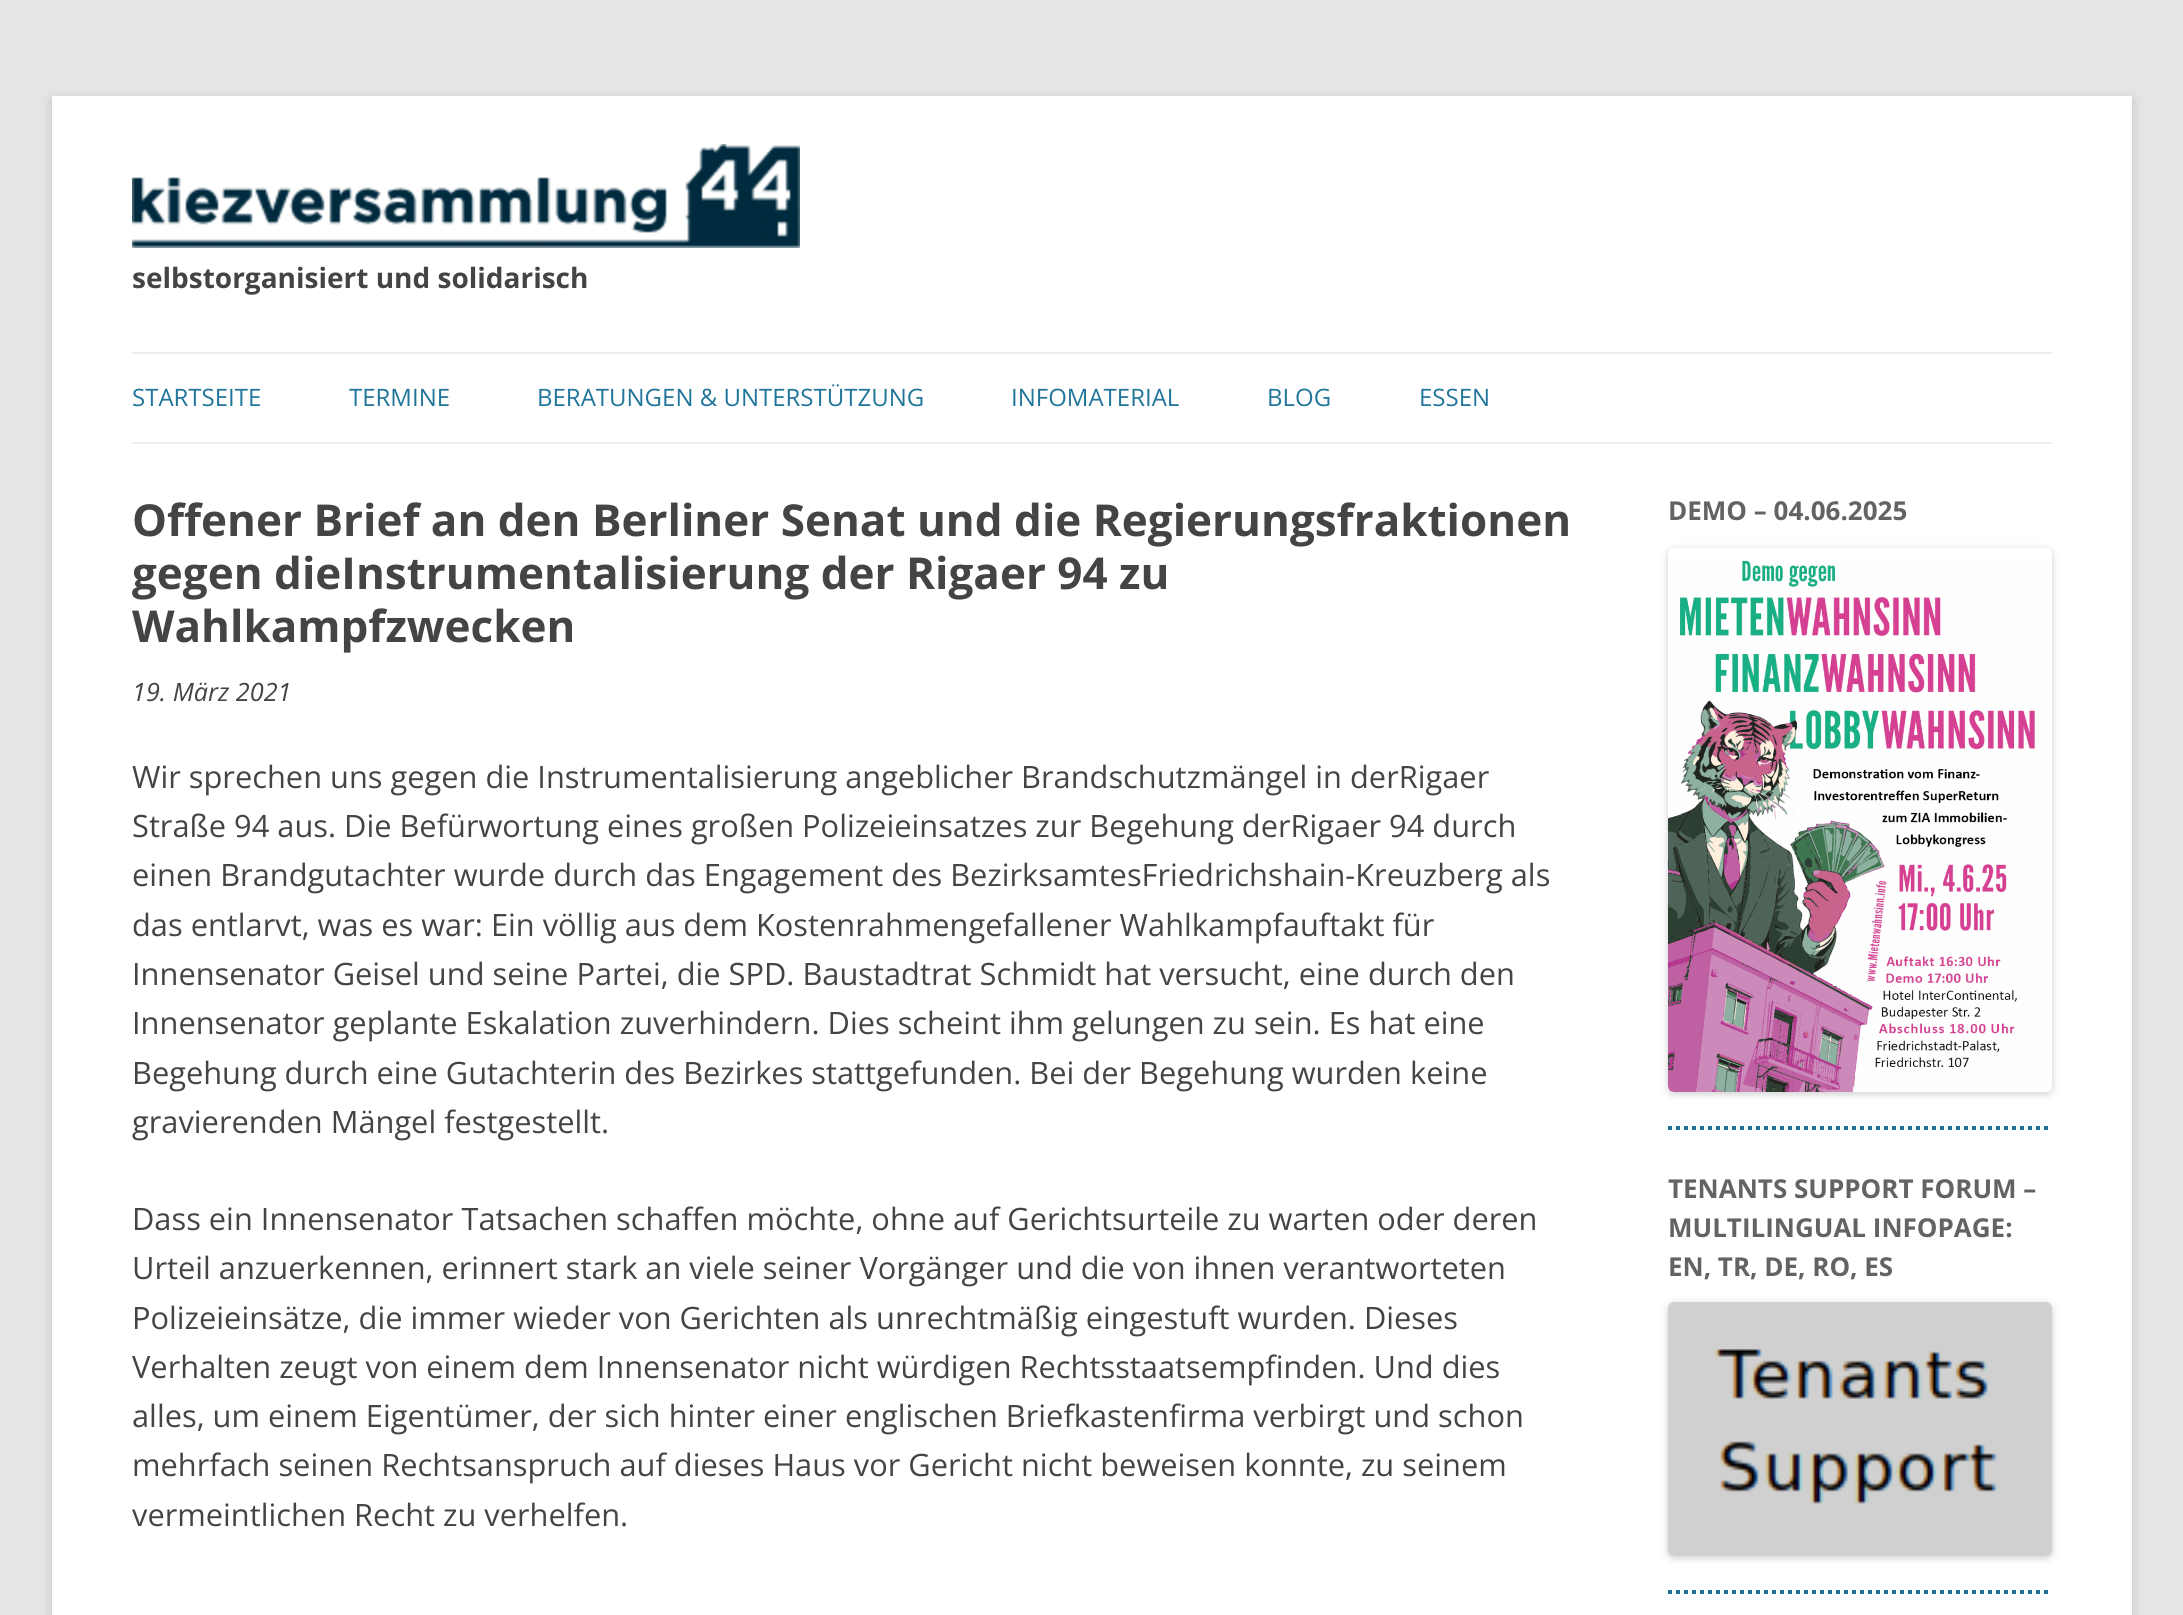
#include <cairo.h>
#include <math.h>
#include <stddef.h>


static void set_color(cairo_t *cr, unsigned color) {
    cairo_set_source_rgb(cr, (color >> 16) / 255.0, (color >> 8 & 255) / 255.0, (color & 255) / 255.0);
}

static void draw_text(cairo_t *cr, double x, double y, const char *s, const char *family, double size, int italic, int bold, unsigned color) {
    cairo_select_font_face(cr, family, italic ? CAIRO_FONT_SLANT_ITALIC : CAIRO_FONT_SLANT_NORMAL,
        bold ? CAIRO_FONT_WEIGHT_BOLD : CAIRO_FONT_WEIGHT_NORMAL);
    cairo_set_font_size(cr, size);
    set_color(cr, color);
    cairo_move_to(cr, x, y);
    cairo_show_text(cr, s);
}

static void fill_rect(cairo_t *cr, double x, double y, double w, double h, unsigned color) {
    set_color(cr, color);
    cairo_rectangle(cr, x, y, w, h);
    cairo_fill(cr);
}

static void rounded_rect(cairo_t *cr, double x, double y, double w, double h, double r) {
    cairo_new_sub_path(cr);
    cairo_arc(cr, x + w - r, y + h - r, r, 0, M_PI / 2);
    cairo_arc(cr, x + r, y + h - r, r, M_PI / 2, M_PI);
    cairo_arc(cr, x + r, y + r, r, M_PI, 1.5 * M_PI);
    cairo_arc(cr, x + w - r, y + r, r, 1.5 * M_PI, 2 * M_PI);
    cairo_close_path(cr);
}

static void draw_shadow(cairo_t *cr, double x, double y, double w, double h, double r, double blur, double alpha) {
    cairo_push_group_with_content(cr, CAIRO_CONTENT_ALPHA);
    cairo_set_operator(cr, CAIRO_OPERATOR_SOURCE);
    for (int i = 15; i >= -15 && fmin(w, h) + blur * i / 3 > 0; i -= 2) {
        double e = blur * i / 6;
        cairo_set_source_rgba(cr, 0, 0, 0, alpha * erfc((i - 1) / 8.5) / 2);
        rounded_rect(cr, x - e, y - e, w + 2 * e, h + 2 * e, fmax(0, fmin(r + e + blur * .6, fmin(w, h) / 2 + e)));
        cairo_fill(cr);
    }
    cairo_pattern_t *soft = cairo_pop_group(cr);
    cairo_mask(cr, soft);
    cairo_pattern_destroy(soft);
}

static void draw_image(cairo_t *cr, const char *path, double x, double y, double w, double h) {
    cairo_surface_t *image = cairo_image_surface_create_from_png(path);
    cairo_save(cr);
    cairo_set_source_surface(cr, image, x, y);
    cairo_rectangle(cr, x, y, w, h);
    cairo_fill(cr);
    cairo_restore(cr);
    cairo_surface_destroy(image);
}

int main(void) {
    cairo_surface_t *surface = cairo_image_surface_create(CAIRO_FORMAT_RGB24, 2183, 1615);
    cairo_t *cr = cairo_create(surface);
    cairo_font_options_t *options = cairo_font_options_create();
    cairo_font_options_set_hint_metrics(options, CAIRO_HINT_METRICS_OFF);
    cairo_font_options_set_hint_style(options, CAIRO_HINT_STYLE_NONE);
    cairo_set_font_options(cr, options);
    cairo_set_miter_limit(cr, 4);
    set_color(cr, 0xE6E6E6);
    cairo_paint(cr);
    set_color(cr, 0x646464);
    draw_shadow(cr, 52, 100, 2080, 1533, 0, 6, 0.3);
    fill_rect(cr, 52, 96, 2080, 1519, 0xFFFFFF);
    draw_image(cr, "assets/img1.png", 132, 144, 668, 104);
    draw_text(cr, 132, 288, "selbstorganisiert und solidarisch", "Open Sans", 28, 0, 1, 0x444444);
    fill_rect(cr, 132, 352, 1920, 2, 0xEDEDED);
    fill_rect(cr, 132, 442, 1920, 2, 0xEDEDED);
    draw_text(cr, 132, 406, "STARTSEITE", "Open Sans", 24, 0, 0, 0x21759B);
    draw_text(cr, 349, 406, "TERMINE", "Open Sans", 24, 0, 0, 0x21759B);
    draw_text(cr, 537, 406, "BERATUNGEN & UNTERSTÜTZUNG", "Open Sans", 24, 0, 0, 0x21759B);
    draw_text(cr, 1011, 406, "INFOMATERIAL", "Open Sans", 24, 0, 0, 0x21759B);
    draw_text(cr, 1267, 406, "BLOG", "Open Sans", 24, 0, 0, 0x21759B);
    draw_text(cr, 1419, 406, "ESSEN", "Open Sans", 24, 0, 0, 0x21759B);
    draw_text(cr, 132, 536, "Offener Brief an den Berliner Senat und die Regierungsfraktionen", "Open Sans", 44, 0, 1, 0x444444);
    draw_text(cr, 132, 589, "gegen dieInstrumentalisierung der Rigaer 94 zu", "Open Sans", 44, 0, 1, 0x444444);
    draw_text(cr, 132, 642, "Wahlkampfzwecken", "Open Sans", 44, 0, 1, 0x444444);
    draw_text(cr, 132, 701, "19. März 2021", "Open Sans", 25.25, 1, 0, 0x444444);
    draw_text(cr, 132, 788, "Wir sprechen uns gegen die Instrumentalisierung angeblicher Brandschutzmängel in derRigaer", "Open Sans", 30.8, 0, 0, 0x444444);
    draw_text(cr, 132, 837, "Straße 94 aus. Die Befürwortung eines großen Polizeieinsatzes zur Begehung derRigaer 94 durch", "Open Sans", 30.8, 0, 0, 0x444444);
    draw_text(cr, 132, 886, "einen Brandgutachter wurde durch das Engagement des BezirksamtesFriedrichshain-Kreuzberg als", "Open Sans", 30.8, 0, 0, 0x444444);
    draw_text(cr, 132, 936, "das entlarvt, was es war: Ein völlig aus dem Kostenrahmengefallener Wahlkampfauftakt für", "Open Sans", 30.8, 0, 0, 0x444444);
    draw_text(cr, 132, 985, "Innensenator Geisel und seine Partei, die SPD. Baustadtrat Schmidt hat versucht, eine durch den", "Open Sans", 30.8, 0, 0, 0x444444);
    draw_text(cr, 132, 1034, "Innensenator geplante Eskalation zuverhindern. Dies scheint ihm gelungen zu sein. Es hat eine", "Open Sans", 30.8, 0, 0, 0x444444);
    draw_text(cr, 132, 1084, "Begehung durch eine Gutachterin des Bezirkes stattgefunden. Bei der Begehung wurden keine", "Open Sans", 30.8, 0, 0, 0x444444);
    draw_text(cr, 132, 1133, "gravierenden Mängel festgestellt.", "Open Sans", 30.8, 0, 0, 0x444444);
    draw_text(cr, 132, 1230, "Dass ein Innensenator Tatsachen schaffen möchte, ohne auf Gerichtsurteile zu warten oder deren", "Open Sans", 30.8, 0, 0, 0x444444);
    draw_text(cr, 132, 1279, "Urteil anzuerkennen, erinnert stark an viele seiner Vorgänger und die von ihnen verantworteten", "Open Sans", 30.8, 0, 0, 0x444444);
    draw_text(cr, 132, 1329, "Polizeieinsätze, die immer wieder von Gerichten als unrechtmäßig eingestuft wurden. Dieses", "Open Sans", 30.8, 0, 0, 0x444444);
    draw_text(cr, 132, 1378, "Verhalten zeugt von einem dem Innensenator nicht würdigen Rechtsstaatsempfinden. Und dies", "Open Sans", 30.8, 0, 0, 0x444444);
    draw_text(cr, 132, 1427, "alles, um einem Eigentümer, der sich hinter einer englischen Briefkastenfirma verbirgt und schon", "Open Sans", 30.8, 0, 0, 0x444444);
    draw_text(cr, 132, 1476, "mehrfach seinen Rechtsanspruch auf dieses Haus vor Gericht nicht beweisen konnte, zu seinem", "Open Sans", 30.8, 0, 0, 0x444444);
    draw_text(cr, 132, 1526, "vermeintlichen Recht zu verhelfen.", "Open Sans", 30.8, 0, 0, 0x444444);
    cairo_new_path(cr);
    cairo_move_to(cr, 1668, 1128);
    cairo_line_to(cr, 2052, 1128);
    set_color(cr, 0x21759B);
    cairo_set_line_width(cr, 4);
    cairo_set_dash(cr, (double[]){4, 4}, 2, 0);
    cairo_stroke(cr);
    draw_text(cr, 1668, 520, "DEMO – 04.06.2025", "Open Sans", 26, 0, 1, 0x636363);
    cairo_save(cr);
    cairo_set_fill_rule(cr, CAIRO_FILL_RULE_EVEN_ODD);
    cairo_new_path(cr);
    cairo_move_to(cr, 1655, 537);
    cairo_line_to(cr, 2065, 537);
    cairo_line_to(cr, 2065, 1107);
    cairo_line_to(cr, 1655, 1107);
    cairo_close_path(cr);
    cairo_move_to(cr, 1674, 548);
    cairo_line_to(cr, 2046, 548);
    cairo_curve_to(cr, 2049.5, 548, 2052, 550.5, 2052, 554);
    cairo_line_to(cr, 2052, 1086);
    cairo_curve_to(cr, 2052, 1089.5, 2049.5, 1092, 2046, 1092);
    cairo_line_to(cr, 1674, 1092);
    cairo_curve_to(cr, 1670.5, 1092, 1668, 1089.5, 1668, 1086);
    cairo_line_to(cr, 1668, 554);
    cairo_curve_to(cr, 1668, 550.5, 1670.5, 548, 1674, 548);
    cairo_close_path(cr);
    cairo_clip(cr);
    set_color(cr, 0x000000);
    draw_shadow(cr, 1668, 550, 384, 544, 6, 4, 0.2);
    cairo_restore(cr);
    draw_image(cr, "assets/img2.png", 1668, 560, 384, 532);
    cairo_new_path(cr);
    cairo_move_to(cr, 1668, 1592);
    cairo_line_to(cr, 2052, 1592);
    set_color(cr, 0x21759B);
    cairo_stroke(cr);
    draw_text(cr, 1668, 1198, "TENANTS SUPPORT FORUM –", "Open Sans", 26, 0, 1, 0x636363);
    draw_text(cr, 1668, 1237, "MULTILINGUAL INFOPAGE:", "Open Sans", 26, 0, 1, 0x636363);
    draw_text(cr, 1668, 1276, "EN, TR, DE, RO, ES", "Open Sans", 26, 0, 1, 0x636363);
    set_color(cr, 0x000000);
    draw_shadow(cr, 1668, 1304, 384, 254, 6, 4, 0.2);
    draw_image(cr, "assets/img3.png", 1668, 1302, 384, 254);
    cairo_surface_write_to_png(surface, "output.png");
    cairo_font_options_destroy(options);
    cairo_destroy(cr);
    cairo_surface_destroy(surface);
    return 0;
}
